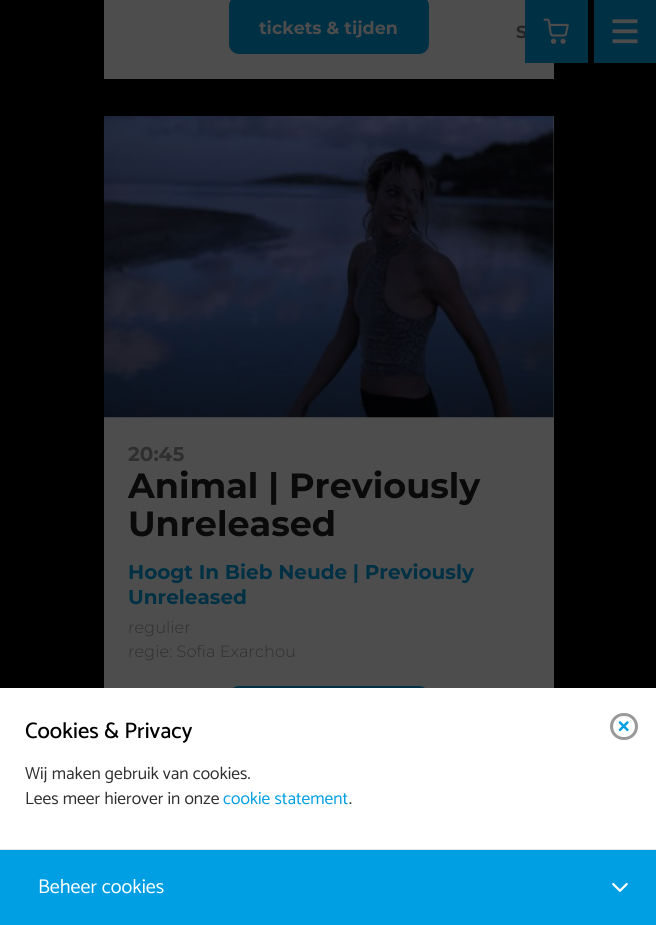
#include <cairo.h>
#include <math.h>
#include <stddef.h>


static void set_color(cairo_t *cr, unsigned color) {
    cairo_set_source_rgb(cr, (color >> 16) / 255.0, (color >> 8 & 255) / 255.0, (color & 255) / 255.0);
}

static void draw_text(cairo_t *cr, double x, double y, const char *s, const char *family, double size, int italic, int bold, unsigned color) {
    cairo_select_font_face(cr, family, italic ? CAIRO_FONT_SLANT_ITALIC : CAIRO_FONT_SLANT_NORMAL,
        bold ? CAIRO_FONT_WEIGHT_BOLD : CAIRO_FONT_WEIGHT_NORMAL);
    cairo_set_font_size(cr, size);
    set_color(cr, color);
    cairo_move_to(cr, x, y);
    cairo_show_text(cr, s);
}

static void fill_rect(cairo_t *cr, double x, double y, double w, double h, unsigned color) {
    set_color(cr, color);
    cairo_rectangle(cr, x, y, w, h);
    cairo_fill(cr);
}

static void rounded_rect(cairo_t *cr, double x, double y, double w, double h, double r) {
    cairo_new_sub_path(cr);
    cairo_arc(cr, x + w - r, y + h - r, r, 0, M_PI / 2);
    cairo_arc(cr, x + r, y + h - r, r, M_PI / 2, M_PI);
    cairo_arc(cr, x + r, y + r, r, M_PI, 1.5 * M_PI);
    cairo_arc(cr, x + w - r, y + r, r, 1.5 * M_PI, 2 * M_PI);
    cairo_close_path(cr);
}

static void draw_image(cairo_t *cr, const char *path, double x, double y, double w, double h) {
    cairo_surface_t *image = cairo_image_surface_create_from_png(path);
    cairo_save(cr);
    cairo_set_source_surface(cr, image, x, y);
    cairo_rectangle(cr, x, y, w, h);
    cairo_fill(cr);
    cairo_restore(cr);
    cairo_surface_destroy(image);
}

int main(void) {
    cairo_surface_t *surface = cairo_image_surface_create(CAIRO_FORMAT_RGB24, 656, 925);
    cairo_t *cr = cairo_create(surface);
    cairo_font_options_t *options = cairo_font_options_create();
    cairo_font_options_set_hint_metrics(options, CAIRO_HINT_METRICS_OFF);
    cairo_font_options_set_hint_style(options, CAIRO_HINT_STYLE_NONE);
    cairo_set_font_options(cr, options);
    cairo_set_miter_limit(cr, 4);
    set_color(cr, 0x000000);
    cairo_paint(cr);
    fill_rect(cr, 104, 0, 450, 79, 0x4D4D4D);
    set_color(cr, 0x003044);
    rounded_rect(cr, 229, -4, 200, 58, 10);
    cairo_fill(cr);
    draw_text(cr, 259, 34, "tickets & tijden", "Montserrat", 17.5, 0, 1, 0x4D4D4D);
    fill_rect(cr, 104, 116, 450, 572, 0x4D4D4D);
    draw_image(cr, "assets/img1.png", 103, 116, 451, 302);
    draw_text(cr, 128, 461, "20:45", "Montserrat", 20, 0, 1, 0x2F2F2F);
    draw_text(cr, 128, 498, "Animal | Previously", "Montserrat", 35, 0, 1, 0x0A0A0A);
    draw_text(cr, 128, 536, "Unreleased", "Montserrat", 35, 0, 1, 0x0A0A0A);
    draw_text(cr, 128, 579, "Hoogt In Bieb Neude | Previously", "Montserrat", 20, 0, 1, 0x003044);
    draw_text(cr, 128, 604, "Unreleased", "Montserrat", 20, 0, 1, 0x003044);
    draw_text(cr, 128, 633, "regulier", "Montserrat Light", 16.25, 0, 0, 0x2F2F2F);
    draw_text(cr, 128, 657, "regie: Sofia Exarchou", "Montserrat Light", 16.25, 0, 0, 0x2F2F2F);
    set_color(cr, 0x003044);
    rounded_rect(cr, 229, 686, 200, 58, 10);
    cairo_fill(cr);
    draw_text(cr, 516, 38, "S", "Montserrat", 17.5, 0, 1, 0x252525);
    fill_rect(cr, 594, 0, 62, 63, 0x003044);
    draw_image(cr, "assets/img2.png", 612, 19, 26, 25);
    fill_rect(cr, 525, 0, 63, 63, 0x003044);
    draw_image(cr, "assets/img3.png", 543, 18, 26, 26);
    fill_rect(cr, 0, 688, 656, 161, 0xFFFFFF);
    fill_rect(cr, 0, 849, 656, 1, 0xE6E6E6);
    draw_text(cr, 25, 738, "Cookies & Privacy", "Catamaran Medium", 22.5, 0, 0, 0x000000);
    rounded_rect(cr, 611.5, 714.5, 25, 24, 12);
    set_color(cr, 0x999999);
    cairo_set_line_width(cr, 3);
    cairo_stroke(cr);
    draw_image(cr, "assets/img4.png", 618, 721, 11, 11);
    draw_text(cr, 25, 779, "Wij maken gebruik van cookies.", "Catamaran", 17.5, 0, 0, 0x2F2F2F);
    draw_text(cr, 25, 804, "Lees meer hierover in onze", "Catamaran", 17.5, 0, 0, 0x2F2F2F);
    draw_text(cr, 223, 804, "cookie statement", "Catamaran", 17.5, 0, 0, 0x009FE3);
    draw_text(cr, 349, 804, ".", "Catamaran", 17.5, 0, 0, 0x2F2F2F);
    fill_rect(cr, 0, 850, 656, 75, 0x009FE3);
    draw_text(cr, 38, 893, "Beheer cookies", "Catamaran", 20, 0, 0, 0xFFFFFF);
    draw_image(cr, "assets/img5.png", 612, 883, 16, 9);
    cairo_surface_write_to_png(surface, "output.png");
    cairo_font_options_destroy(options);
    cairo_destroy(cr);
    cairo_surface_destroy(surface);
    return 0;
}
